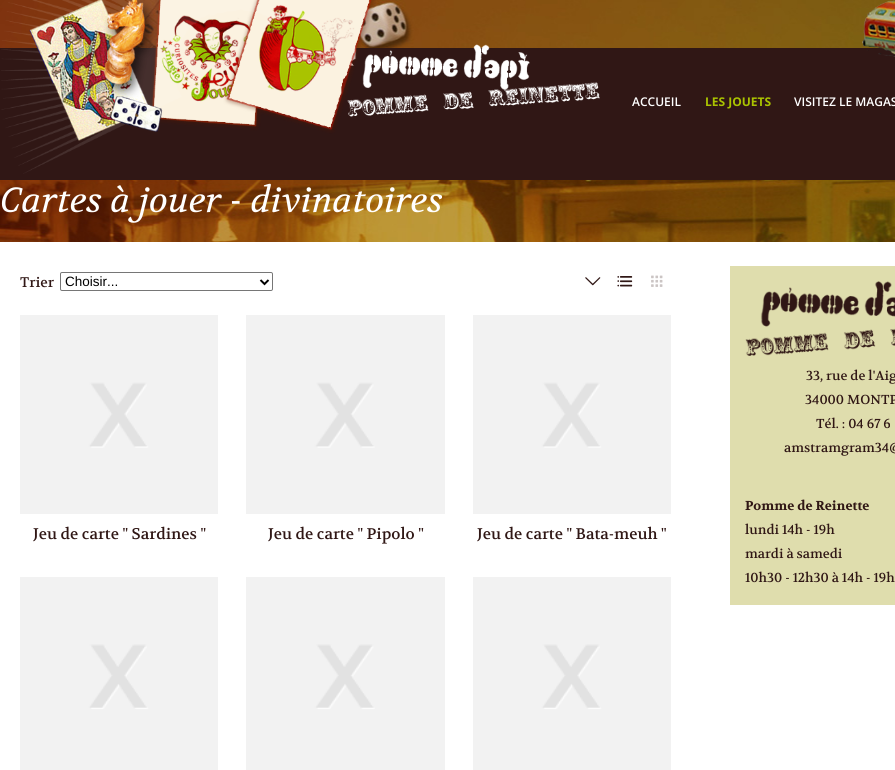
#include <cairo.h>
#include <math.h>
#include <stddef.h>


static void set_color(cairo_t *cr, unsigned color) {
    cairo_set_source_rgb(cr, (color >> 16) / 255.0, (color >> 8 & 255) / 255.0, (color & 255) / 255.0);
}

static void draw_text(cairo_t *cr, double x, double y, const char *s, const char *family, double size, int italic, int bold, unsigned color) {
    cairo_select_font_face(cr, family, italic ? CAIRO_FONT_SLANT_ITALIC : CAIRO_FONT_SLANT_NORMAL,
        bold ? CAIRO_FONT_WEIGHT_BOLD : CAIRO_FONT_WEIGHT_NORMAL);
    cairo_set_font_size(cr, size);
    set_color(cr, color);
    cairo_move_to(cr, x, y);
    cairo_show_text(cr, s);
}

static void fill_rect(cairo_t *cr, double x, double y, double w, double h, unsigned color) {
    set_color(cr, color);
    cairo_rectangle(cr, x, y, w, h);
    cairo_fill(cr);
}

static void rounded_rect(cairo_t *cr, double x, double y, double w, double h, double r) {
    cairo_new_sub_path(cr);
    cairo_arc(cr, x + w - r, y + h - r, r, 0, M_PI / 2);
    cairo_arc(cr, x + r, y + h - r, r, M_PI / 2, M_PI);
    cairo_arc(cr, x + r, y + r, r, M_PI, 1.5 * M_PI);
    cairo_arc(cr, x + w - r, y + r, r, 1.5 * M_PI, 2 * M_PI);
    cairo_close_path(cr);
}

static void draw_image(cairo_t *cr, const char *path, double x, double y, double w, double h) {
    cairo_surface_t *image = cairo_image_surface_create_from_png(path);
    cairo_save(cr);
    cairo_set_source_surface(cr, image, x, y);
    cairo_rectangle(cr, x, y, w, h);
    cairo_fill(cr);
    cairo_restore(cr);
    cairo_surface_destroy(image);
}

int main(void) {
    cairo_surface_t *surface = cairo_image_surface_create(CAIRO_FORMAT_RGB24, 895, 770);
    cairo_t *cr = cairo_create(surface);
    cairo_font_options_t *options = cairo_font_options_create();
    cairo_font_options_set_hint_metrics(options, CAIRO_HINT_METRICS_OFF);
    cairo_font_options_set_hint_style(options, CAIRO_HINT_STYLE_NONE);
    cairo_set_font_options(cr, options);
    cairo_set_miter_limit(cr, 4);
    set_color(cr, 0xFFFFFF);
    cairo_paint(cr);
    draw_image(cr, "assets/img1.png", 0, 0, 895, 242);
    fill_rect(cr, 0, 48, 895, 132, 0x301715);
    draw_image(cr, "assets/img2.png", 862, 0, 33, 57);
    draw_image(cr, "assets/img3.png", 1, 0, 599, 174);
    draw_text(cr, 632, 106, "ACCUEIL", "Open Sans SemiBold", 12, 0, 0, 0xFFFFFF);
    draw_text(cr, 705, 106, "LES JOUETS", "Open Sans", 12, 0, 1, 0xAAC300);
    draw_text(cr, 794, 106, "VISITEZ LE MAGAS", "Open Sans SemiBold", 12, 0, 0, 0xFFFFFF);
    draw_text(cr, 0, 212, "Cartes à jouer - divinatoires", "Volkhov", 35, 1, 0, 0xFFFFFF);
    draw_text(cr, 20, 287, "Trier", "Volkhov", 14, 0, 0, 0x301715);
    rounded_rect(cr, 60.5, 272.5, 212, 18, 1.5);
    set_color(cr, 0x767676);
    cairo_set_line_width(cr, 1);
    cairo_stroke(cr);
    cairo_new_path(cr);
    cairo_move_to(cr, 260.5, 280);
    cairo_line_to(cr, 264.5, 284);
    cairo_line_to(cr, 268.5, 280);
    set_color(cr, 0x000000);
    cairo_set_line_width(cr, 2);
    cairo_stroke(cr);
    draw_text(cr, 65, 286, "Choisir...", "Liberation Sans", 13.5, 0, 0, 0x000000);
    draw_image(cr, "assets/img4.png", 585, 277, 16, 9);
    draw_image(cr, "assets/img5.png", 617, 276, 16, 11);
    draw_image(cr, "assets/img6.png", 651, 275, 12, 12);
    draw_image(cr, "assets/img7.png", 20, 315, 198, 199);
    draw_text(cr, 33, 539, "Jeu de carte \" Sardines \"", "Volkhov", 15.4, 0, 0, 0x301715);
    draw_image(cr, "assets/img8.png", 246, 315, 199, 199);
    draw_text(cr, 268, 539, "Jeu de carte \" Pipolo \"", "Volkhov", 15.4, 0, 0, 0x301715);
    draw_image(cr, "assets/img9.png", 473, 315, 198, 199);
    draw_text(cr, 477, 539, "Jeu de carte \" Bata-meuh \"", "Volkhov", 15.4, 0, 0, 0x301715);
    draw_image(cr, "assets/img10.png", 20, 577, 198, 193);
    draw_image(cr, "assets/img11.png", 246, 577, 199, 193);
    draw_image(cr, "assets/img12.png", 473, 577, 198, 193);
    fill_rect(cr, 730, 266, 165, 339, 0xDFDDAD);
    draw_image(cr, "assets/img13.png", 745, 281, 150, 75);
    draw_text(cr, 806, 380, "33, rue de l'Aig", "Volkhov", 13, 0, 0, 0x301715);
    draw_text(cr, 805, 404, "34000 MONTP", "Volkhov", 13, 0, 0, 0x301715);
    draw_text(cr, 816, 428, "Tél. : 04 67 6", "Volkhov", 13, 0, 0, 0x301715);
    draw_text(cr, 784, 452, "amstramgram34@", "Volkhov", 13, 0, 0, 0x301715);
    draw_text(cr, 745, 510, "Pomme de Reinette", "Volkhov", 13, 0, 1, 0x301715);
    draw_text(cr, 745, 534, "lundi 14h - 19h", "Volkhov", 13, 0, 0, 0x301715);
    draw_text(cr, 745, 558, "mardi à samedi", "Volkhov", 13, 0, 0, 0x301715);
    draw_text(cr, 745, 582, "10h30 - 12h30 à 14h - 19h", "Volkhov", 13, 0, 0, 0x301715);
    cairo_surface_write_to_png(surface, "output.png");
    cairo_font_options_destroy(options);
    cairo_destroy(cr);
    cairo_surface_destroy(surface);
    return 0;
}
